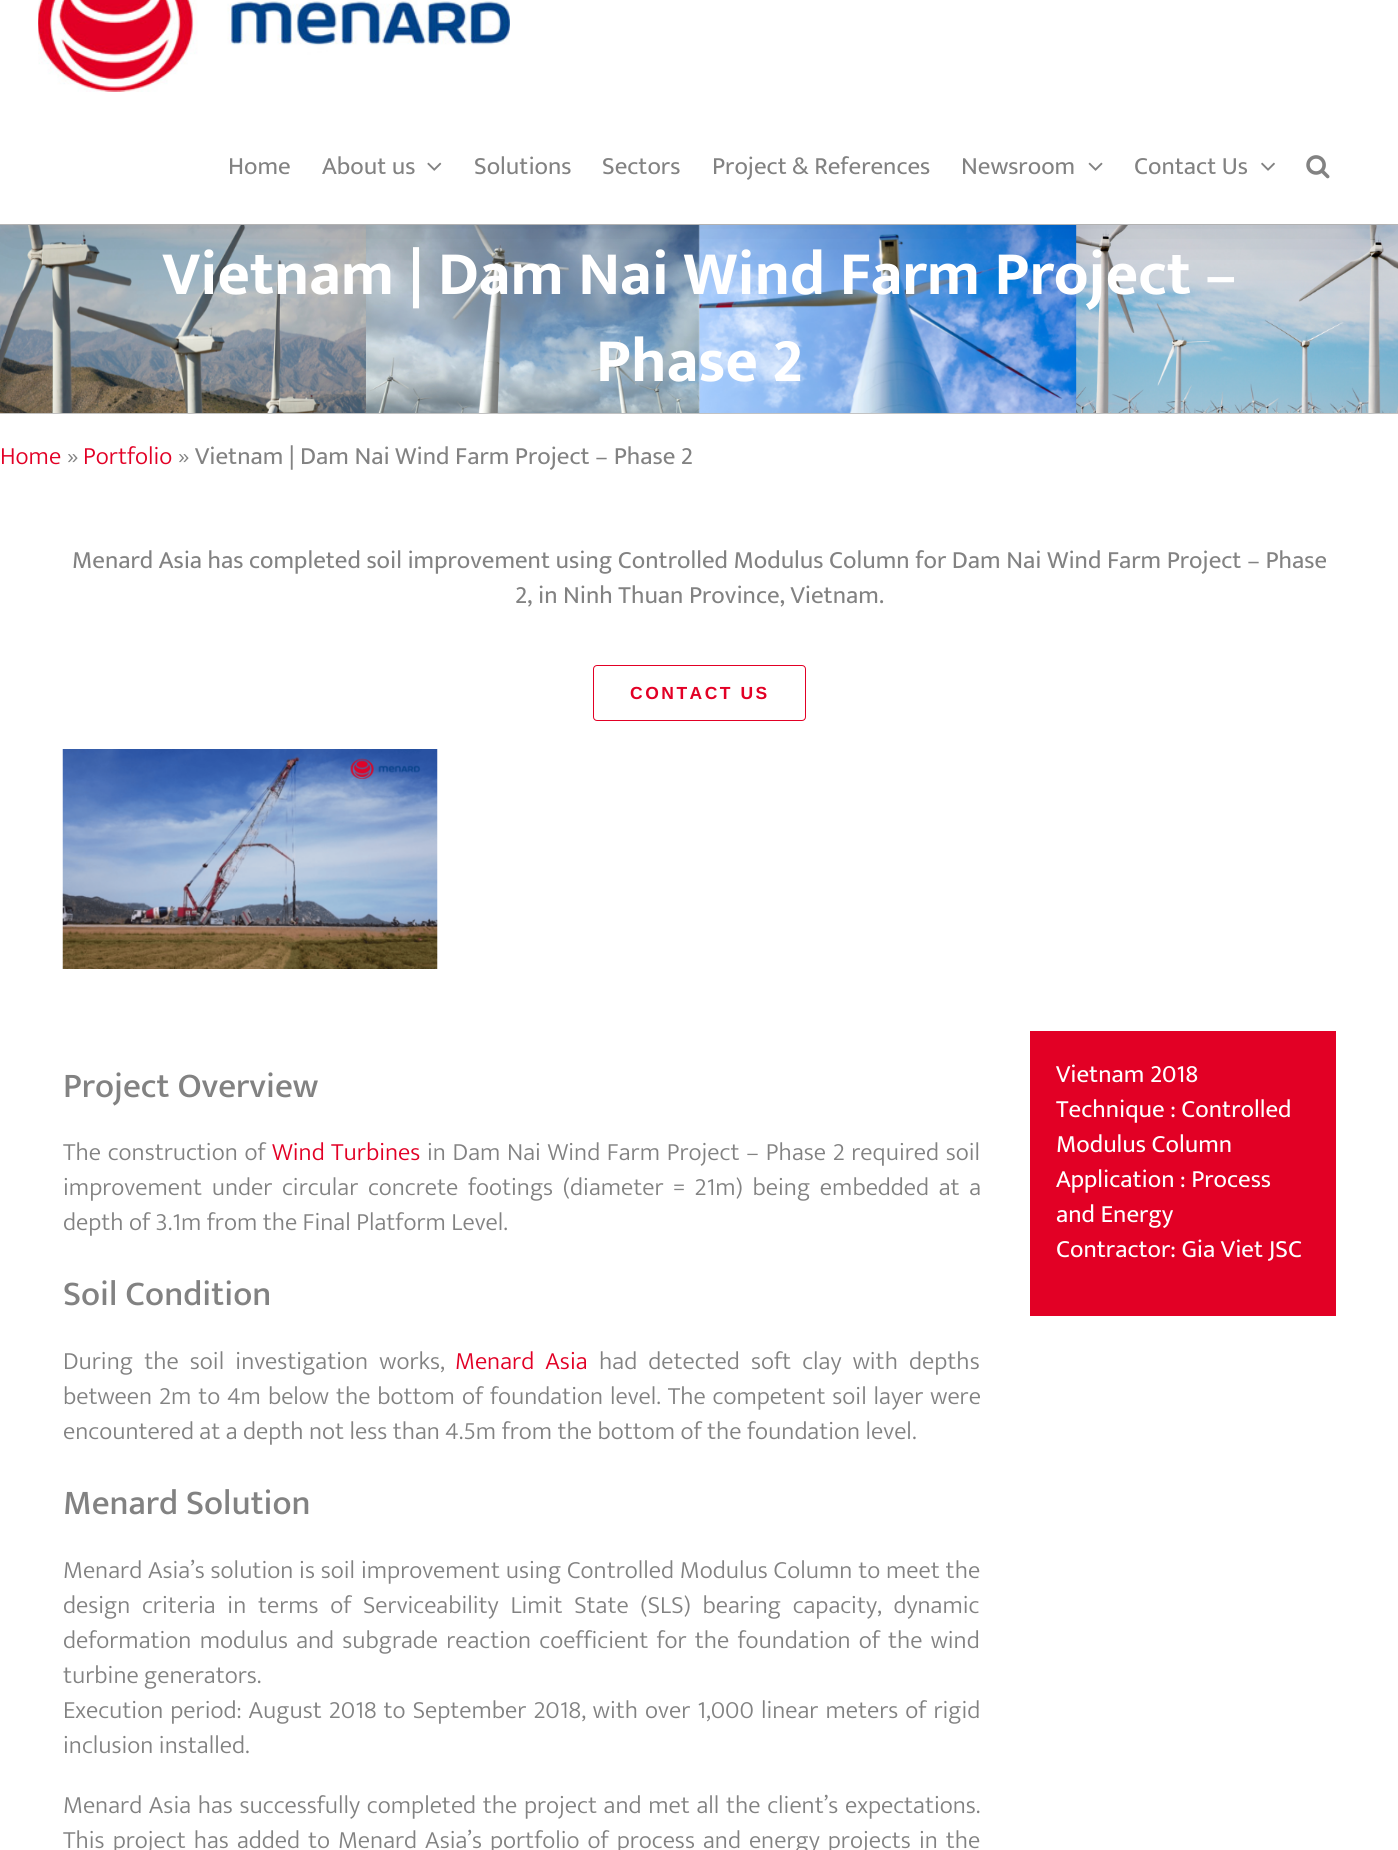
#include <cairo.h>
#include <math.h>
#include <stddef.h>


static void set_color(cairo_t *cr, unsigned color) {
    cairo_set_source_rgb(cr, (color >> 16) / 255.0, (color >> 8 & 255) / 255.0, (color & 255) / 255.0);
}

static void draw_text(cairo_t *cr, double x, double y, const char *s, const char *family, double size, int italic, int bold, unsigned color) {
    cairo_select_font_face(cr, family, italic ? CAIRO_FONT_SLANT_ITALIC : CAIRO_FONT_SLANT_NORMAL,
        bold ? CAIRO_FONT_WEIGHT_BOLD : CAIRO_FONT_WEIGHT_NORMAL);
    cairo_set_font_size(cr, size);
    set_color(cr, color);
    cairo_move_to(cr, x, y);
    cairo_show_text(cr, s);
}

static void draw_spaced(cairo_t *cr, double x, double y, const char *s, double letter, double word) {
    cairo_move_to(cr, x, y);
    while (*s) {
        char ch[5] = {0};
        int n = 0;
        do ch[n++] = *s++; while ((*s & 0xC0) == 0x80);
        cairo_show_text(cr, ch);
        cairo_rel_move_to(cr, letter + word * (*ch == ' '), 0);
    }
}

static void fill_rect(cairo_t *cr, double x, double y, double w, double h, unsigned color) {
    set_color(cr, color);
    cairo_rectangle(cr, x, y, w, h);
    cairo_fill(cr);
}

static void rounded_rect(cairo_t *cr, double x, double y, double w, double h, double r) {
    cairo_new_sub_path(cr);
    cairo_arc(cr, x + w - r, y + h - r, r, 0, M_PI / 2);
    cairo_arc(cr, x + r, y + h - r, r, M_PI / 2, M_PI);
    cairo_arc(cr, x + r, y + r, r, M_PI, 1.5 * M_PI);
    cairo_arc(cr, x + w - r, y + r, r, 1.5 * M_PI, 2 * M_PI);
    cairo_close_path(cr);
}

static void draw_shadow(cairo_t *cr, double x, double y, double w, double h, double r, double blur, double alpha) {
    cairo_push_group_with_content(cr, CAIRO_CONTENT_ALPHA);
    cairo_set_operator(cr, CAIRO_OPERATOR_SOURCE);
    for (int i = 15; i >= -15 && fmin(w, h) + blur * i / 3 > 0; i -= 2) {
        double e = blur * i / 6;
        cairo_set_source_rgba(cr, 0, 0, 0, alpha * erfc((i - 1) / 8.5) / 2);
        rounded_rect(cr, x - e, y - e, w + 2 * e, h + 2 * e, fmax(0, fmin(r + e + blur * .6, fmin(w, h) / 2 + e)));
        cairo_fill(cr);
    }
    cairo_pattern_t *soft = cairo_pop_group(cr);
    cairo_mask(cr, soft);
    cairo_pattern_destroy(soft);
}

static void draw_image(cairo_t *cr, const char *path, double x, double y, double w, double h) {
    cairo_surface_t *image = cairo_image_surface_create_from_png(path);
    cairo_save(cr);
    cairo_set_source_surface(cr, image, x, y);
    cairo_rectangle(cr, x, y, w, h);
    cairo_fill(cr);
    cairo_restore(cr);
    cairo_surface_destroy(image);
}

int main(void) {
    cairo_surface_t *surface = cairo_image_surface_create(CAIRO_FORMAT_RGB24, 1398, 1850);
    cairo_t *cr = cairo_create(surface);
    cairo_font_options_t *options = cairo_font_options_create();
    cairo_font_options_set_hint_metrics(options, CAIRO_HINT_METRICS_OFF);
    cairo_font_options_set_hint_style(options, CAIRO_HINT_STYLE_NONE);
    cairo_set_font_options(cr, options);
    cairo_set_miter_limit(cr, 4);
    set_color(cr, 0xFFFFFF);
    cairo_paint(cr);
    draw_image(cr, "assets/img6.png", 0, 225, 1398, 188);
    fill_rect(cr, 0, 224, 1398, 1, 0xC3C3C3);
    set_color(cr, 0x000000);
    draw_shadow(cr, 3, -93, 1393, 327, 0, 31, 0.14);
    fill_rect(cr, 0, 0, 1398, 224, 0xFFFFFF);
    draw_image(cr, "assets/img1.png", 38, 0, 472, 92);
    draw_text(cr, 228, 174, "Home", "Mukta", 25, 0, 0, 0x828282);
    draw_text(cr, 322, 174, "About us", "Mukta", 25, 0, 0, 0x828282);
    draw_image(cr, "assets/img2.png", 427, 162, 15, 9);
    draw_text(cr, 474, 174, "Solutions", "Mukta", 25, 0, 0, 0x828282);
    draw_text(cr, 602, 174, "Sectors", "Mukta", 25, 0, 0, 0x828282);
    draw_text(cr, 712, 174, "Project & References", "Mukta", 25, 0, 0, 0x828282);
    draw_text(cr, 961, 174, "Newsroom", "Mukta", 25, 0, 0, 0x828282);
    draw_image(cr, "assets/img3.png", 1088, 162, 15, 9);
    draw_text(cr, 1134, 174, "Contact Us", "Mukta", 25, 0, 0, 0x828282);
    draw_image(cr, "assets/img4.png", 1261, 162, 14, 9);
    draw_image(cr, "assets/img5.png", 1306, 155, 24, 24);
    fill_rect(cr, 0, 413, 1398, 1, 0xC3C3C3);
    draw_text(cr, 162, 294, "Vietnam | Dam Nai Wind Farm Project –", "Mukta", 62.5, 0, 1, 0xFFFFFF);
    draw_text(cr, 596, 381, "Phase 2", "Mukta", 62.5, 0, 1, 0xFFFFFF);
    draw_text(cr, 0, 464, "Home", "Mukta Light", 25, 0, 0, 0xE20025);
    draw_text(cr, 67, 464, "»", "Mukta Light", 25, 0, 0, 0x828282);
    draw_text(cr, 83, 464, "Portfolio", "Mukta Light", 25, 0, 0, 0xE20025);
    draw_text(cr, 178, 464, "»", "Mukta Light", 25, 0, 0, 0x828282);
    draw_text(cr, 195, 464, "Vietnam | Dam Nai Wind Farm Project – Phase 2", "Mukta", 25, 0, 0, 0x828282);
    draw_text(cr, 72, 568, "Menard Asia has completed soil improvement using Controlled Modulus Column for Dam Nai Wind Farm Project – Phase", "Mukta", 25, 0, 0, 0x828282);
    draw_text(cr, 515, 603, "2, in Ninh Thuan Province, Vietnam.", "Mukta", 25, 0, 0, 0x828282);
    rounded_rect(cr, 593.5, 665.5, 212, 55, 3.5);
    set_color(cr, 0xE20025);
    cairo_set_line_width(cr, 1);
    cairo_stroke(cr);
    cairo_select_font_face(cr, "Liberation Sans", CAIRO_FONT_SLANT_NORMAL, CAIRO_FONT_WEIGHT_BOLD);
    cairo_set_font_size(cr, 17.5);
    draw_spaced(cr, 630, 699, "CONTACT US", 2.5, 0);
    draw_image(cr, "assets/img7.png", 62, 749, 376, 220);
    draw_text(cr, 63, 1097, "Project Overview", "Mukta Medium", 35, 0, 0, 0x828282);
    cairo_select_font_face(cr, "Mukta Light", CAIRO_FONT_SLANT_NORMAL, CAIRO_FONT_WEIGHT_NORMAL);
    cairo_set_font_size(cr, 25);
    draw_spaced(cr, 63, 1160, "The construction of", 0, 1.25);
    set_color(cr, 0xE20025);
    draw_spaced(cr, 272, 1160, "Wind Turbines", 0, 1);
    set_color(cr, 0x828282);
    draw_spaced(cr, 427, 1160, "in Dam Nai Wind Farm Project – Phase 2 required soil", 0, 1.25);
    draw_spaced(cr, 63, 1195, "improvement under circular concrete footings (diameter = 21m) being embedded at a", 0, 4.25);
    draw_text(cr, 63, 1230, "depth of 3.1m from the Final Platform Level.", "Mukta Light", 25, 0, 0, 0x828282);
    draw_text(cr, 63, 1305, "Soil Condition", "Mukta Medium", 35, 0, 0, 0x828282);
    cairo_select_font_face(cr, "Mukta Light", CAIRO_FONT_SLANT_NORMAL, CAIRO_FONT_WEIGHT_NORMAL);
    cairo_set_font_size(cr, 25);
    draw_spaced(cr, 63, 1369, "During the soil investigation works,", 0, 5.75);
    set_color(cr, 0xE20025);
    draw_spaced(cr, 455, 1369, "Menard Asia", 0, 5.75);
    set_color(cr, 0x828282);
    draw_spaced(cr, 599, 1369, "had detected soft clay with depths", 0, 5.75);
    draw_spaced(cr, 63, 1404, "between 2m to 4m below the bottom of foundation level. The competent soil layer were", 0, 1.5);
    draw_text(cr, 63, 1439, "encountered at a depth not less than 4.5m from the bottom of the foundation level.", "Mukta Light", 25, 0, 0, 0x828282);
    draw_text(cr, 63, 1514, "Menard Solution", "Mukta Medium", 35, 0, 0, 0x828282);
    cairo_select_font_face(cr, "Mukta Light", CAIRO_FONT_SLANT_NORMAL, CAIRO_FONT_WEIGHT_NORMAL);
    cairo_set_font_size(cr, 25);
    draw_spaced(cr, 63, 1578, "Menard Asia’s solution is soil improvement using Controlled Modulus Column to meet the", 0, 0.4);
    draw_spaced(cr, 63, 1613, "design criteria in terms of Serviceability Limit State (SLS) bearing capacity, dynamic", 0, 6.25);
    draw_spaced(cr, 63, 1648, "deformation modulus and subgrade reaction coefficient for the foundation of the wind", 0, 2.75);
    draw_text(cr, 63, 1683, "turbine generators.", "Mukta Light", 25, 0, 0, 0x828282);
    draw_spaced(cr, 63, 1718, "Execution period: August 2018 to September 2018, with over 1,000 linear meters of rigid", 0, 1.6);
    draw_text(cr, 63, 1753, "inclusion installed.", "Mukta Light", 25, 0, 0, 0x828282);
    draw_spaced(cr, 63, 1813, "Menard Asia has successfully completed the project and met all the client’s expectations.", 0, 1.25);
    draw_spaced(cr, 63, 1848, "This project has added to Menard Asia’s portfolio of process and energy projects in the", 0, 2.6);
    fill_rect(cr, 1030, 1031, 306, 285, 0xE20025);
    draw_text(cr, 1056, 1082, "Vietnam 2018", "Mukta", 25, 0, 0, 0xFFFFFF);
    draw_text(cr, 1056, 1117, "Technique : Controlled", "Mukta", 25, 0, 0, 0xFFFFFF);
    draw_text(cr, 1056, 1152, "Modulus Column", "Mukta", 25, 0, 0, 0xFFFFFF);
    draw_text(cr, 1056, 1187, "Application : Process", "Mukta", 25, 0, 0, 0xFFFFFF);
    draw_text(cr, 1056, 1222, "and Energy", "Mukta", 25, 0, 0, 0xFFFFFF);
    draw_text(cr, 1056, 1257, "Contractor: Gia Viet JSC", "Mukta", 25, 0, 0, 0xFFFFFF);
    cairo_surface_write_to_png(surface, "output.png");
    cairo_font_options_destroy(options);
    cairo_destroy(cr);
    cairo_surface_destroy(surface);
    return 0;
}
